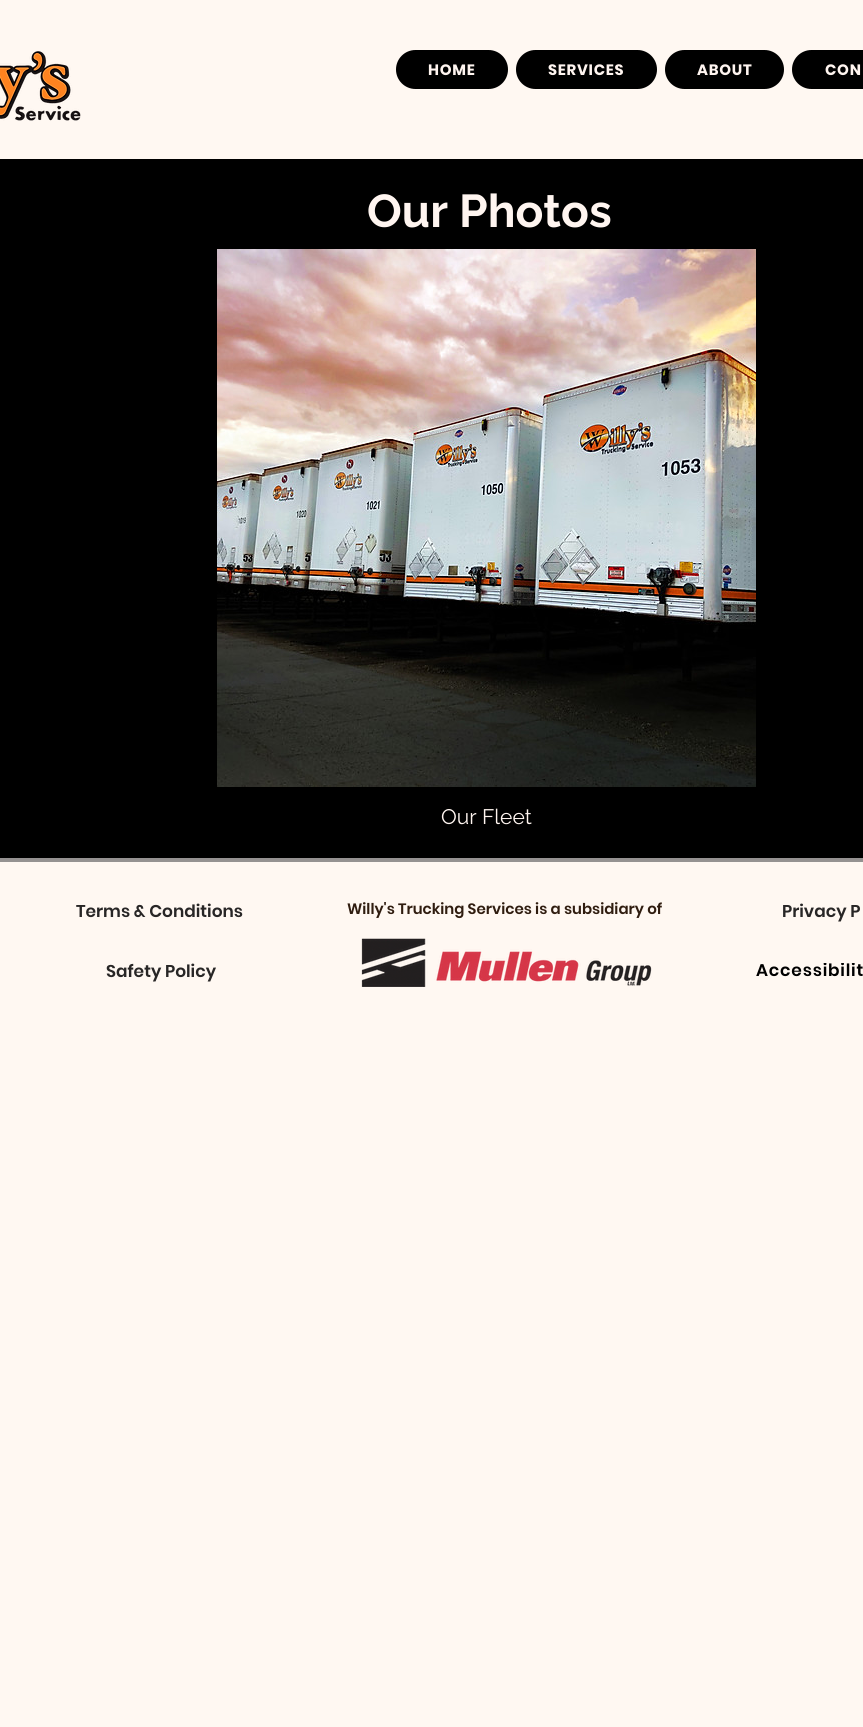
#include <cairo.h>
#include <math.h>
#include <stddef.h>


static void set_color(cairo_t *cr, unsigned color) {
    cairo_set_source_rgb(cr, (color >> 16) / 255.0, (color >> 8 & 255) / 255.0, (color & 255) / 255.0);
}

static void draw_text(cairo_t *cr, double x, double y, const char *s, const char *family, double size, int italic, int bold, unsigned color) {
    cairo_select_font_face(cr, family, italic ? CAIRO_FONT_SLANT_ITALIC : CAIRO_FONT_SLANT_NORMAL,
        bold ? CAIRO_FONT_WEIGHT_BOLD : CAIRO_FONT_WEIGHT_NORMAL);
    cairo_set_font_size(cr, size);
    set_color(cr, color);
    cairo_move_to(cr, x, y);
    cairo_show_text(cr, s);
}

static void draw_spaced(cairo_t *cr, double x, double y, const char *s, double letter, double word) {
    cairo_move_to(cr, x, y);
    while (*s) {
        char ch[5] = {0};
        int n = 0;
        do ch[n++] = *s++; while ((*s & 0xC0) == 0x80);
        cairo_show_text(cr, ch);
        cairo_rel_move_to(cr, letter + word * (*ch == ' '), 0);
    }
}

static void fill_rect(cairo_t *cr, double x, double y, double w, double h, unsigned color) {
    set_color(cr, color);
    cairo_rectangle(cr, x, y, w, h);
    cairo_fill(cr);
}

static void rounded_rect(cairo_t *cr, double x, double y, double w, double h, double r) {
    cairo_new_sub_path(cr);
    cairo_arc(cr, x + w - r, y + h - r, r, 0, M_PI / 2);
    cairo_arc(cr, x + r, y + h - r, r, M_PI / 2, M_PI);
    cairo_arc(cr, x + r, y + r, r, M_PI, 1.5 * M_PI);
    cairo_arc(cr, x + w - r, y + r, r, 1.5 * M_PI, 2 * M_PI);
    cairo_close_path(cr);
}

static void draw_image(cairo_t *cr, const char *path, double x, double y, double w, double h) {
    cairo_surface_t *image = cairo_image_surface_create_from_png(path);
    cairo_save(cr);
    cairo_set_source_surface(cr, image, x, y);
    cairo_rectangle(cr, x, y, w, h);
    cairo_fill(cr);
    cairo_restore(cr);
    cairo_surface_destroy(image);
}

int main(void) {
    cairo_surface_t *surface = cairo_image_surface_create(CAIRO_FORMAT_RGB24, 863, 1727);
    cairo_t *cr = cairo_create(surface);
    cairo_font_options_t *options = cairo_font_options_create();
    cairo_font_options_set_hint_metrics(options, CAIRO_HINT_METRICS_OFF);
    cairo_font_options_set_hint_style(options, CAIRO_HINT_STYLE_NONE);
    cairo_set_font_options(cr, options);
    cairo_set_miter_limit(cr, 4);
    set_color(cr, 0xFFF8F2);
    cairo_paint(cr);
    draw_image(cr, "assets/img1.png", 0, 51, 81, 70);
    set_color(cr, 0x000000);
    rounded_rect(cr, 396, 50, 112, 39, 19.5);
    cairo_fill(cr);
    cairo_select_font_face(cr, "Poppins", CAIRO_FONT_SLANT_NORMAL, CAIRO_FONT_WEIGHT_BOLD);
    cairo_set_font_size(cr, 15);
    set_color(cr, 0xFFF5F0);
    draw_spaced(cr, 428, 75, "HOME", 0.75, 0);
    set_color(cr, 0x000000);
    rounded_rect(cr, 516, 50, 141, 39, 19.5);
    cairo_fill(cr);
    set_color(cr, 0xFFF5F0);
    draw_spaced(cr, 548, 75, "SERVICES", 0.75, 0);
    set_color(cr, 0x000000);
    rounded_rect(cr, 665, 50, 119, 39, 19.5);
    cairo_fill(cr);
    set_color(cr, 0xFFF5F0);
    draw_spaced(cr, 697, 75, "ABOUT", 0.75, 0);
    set_color(cr, 0x000000);
    rounded_rect(cr, 792, 50, 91, 39, 19.5);
    cairo_fill(cr);
    set_color(cr, 0xFFF5F0);
    draw_spaced(cr, 825, 75, "CON", 0.75, 0);
    fill_rect(cr, 0, 159, 863, 699, 0x000000);
    draw_text(cr, 367, 227, "Our Photos", "Raleway", 46, 0, 1, 0xFFF5F0);
    draw_image(cr, "assets/img2.png", 217, 249, 539, 538);
    draw_text(cr, 441, 824, "Our Fleet", "Raleway", 21, 0, 0, 0xFFF5F0);
    fill_rect(cr, 0, 858, 863, 4, 0x959291);
    draw_text(cr, 76, 917, "Terms & Conditions", "Poppins SemiBold", 17, 0, 0, 0x282626);
    draw_text(cr, 347, 914, "Willy's Trucking Services is a subsidiary of", "Poppins SemiBold", 15, 0, 0, 0x301D10);
    draw_text(cr, 782, 917, "Privacy P", "Poppins SemiBold", 17, 0, 0, 0x282626);
    draw_text(cr, 106, 977, "Safety Policy", "Poppins SemiBold", 17, 0, 0, 0x282626);
    draw_image(cr, "assets/img3.png", 361, 938, 291, 49);
    cairo_save(cr);
    cairo_rectangle(cr, 756, 963, 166, 14);
    cairo_clip(cr);
    set_color(cr, 0x000000);
    draw_spaced(cr, 756, 976, "Accessibilit", 0.8, 0);
    cairo_restore(cr);
    cairo_surface_write_to_png(surface, "output.png");
    cairo_font_options_destroy(options);
    cairo_destroy(cr);
    cairo_surface_destroy(surface);
    return 0;
}
